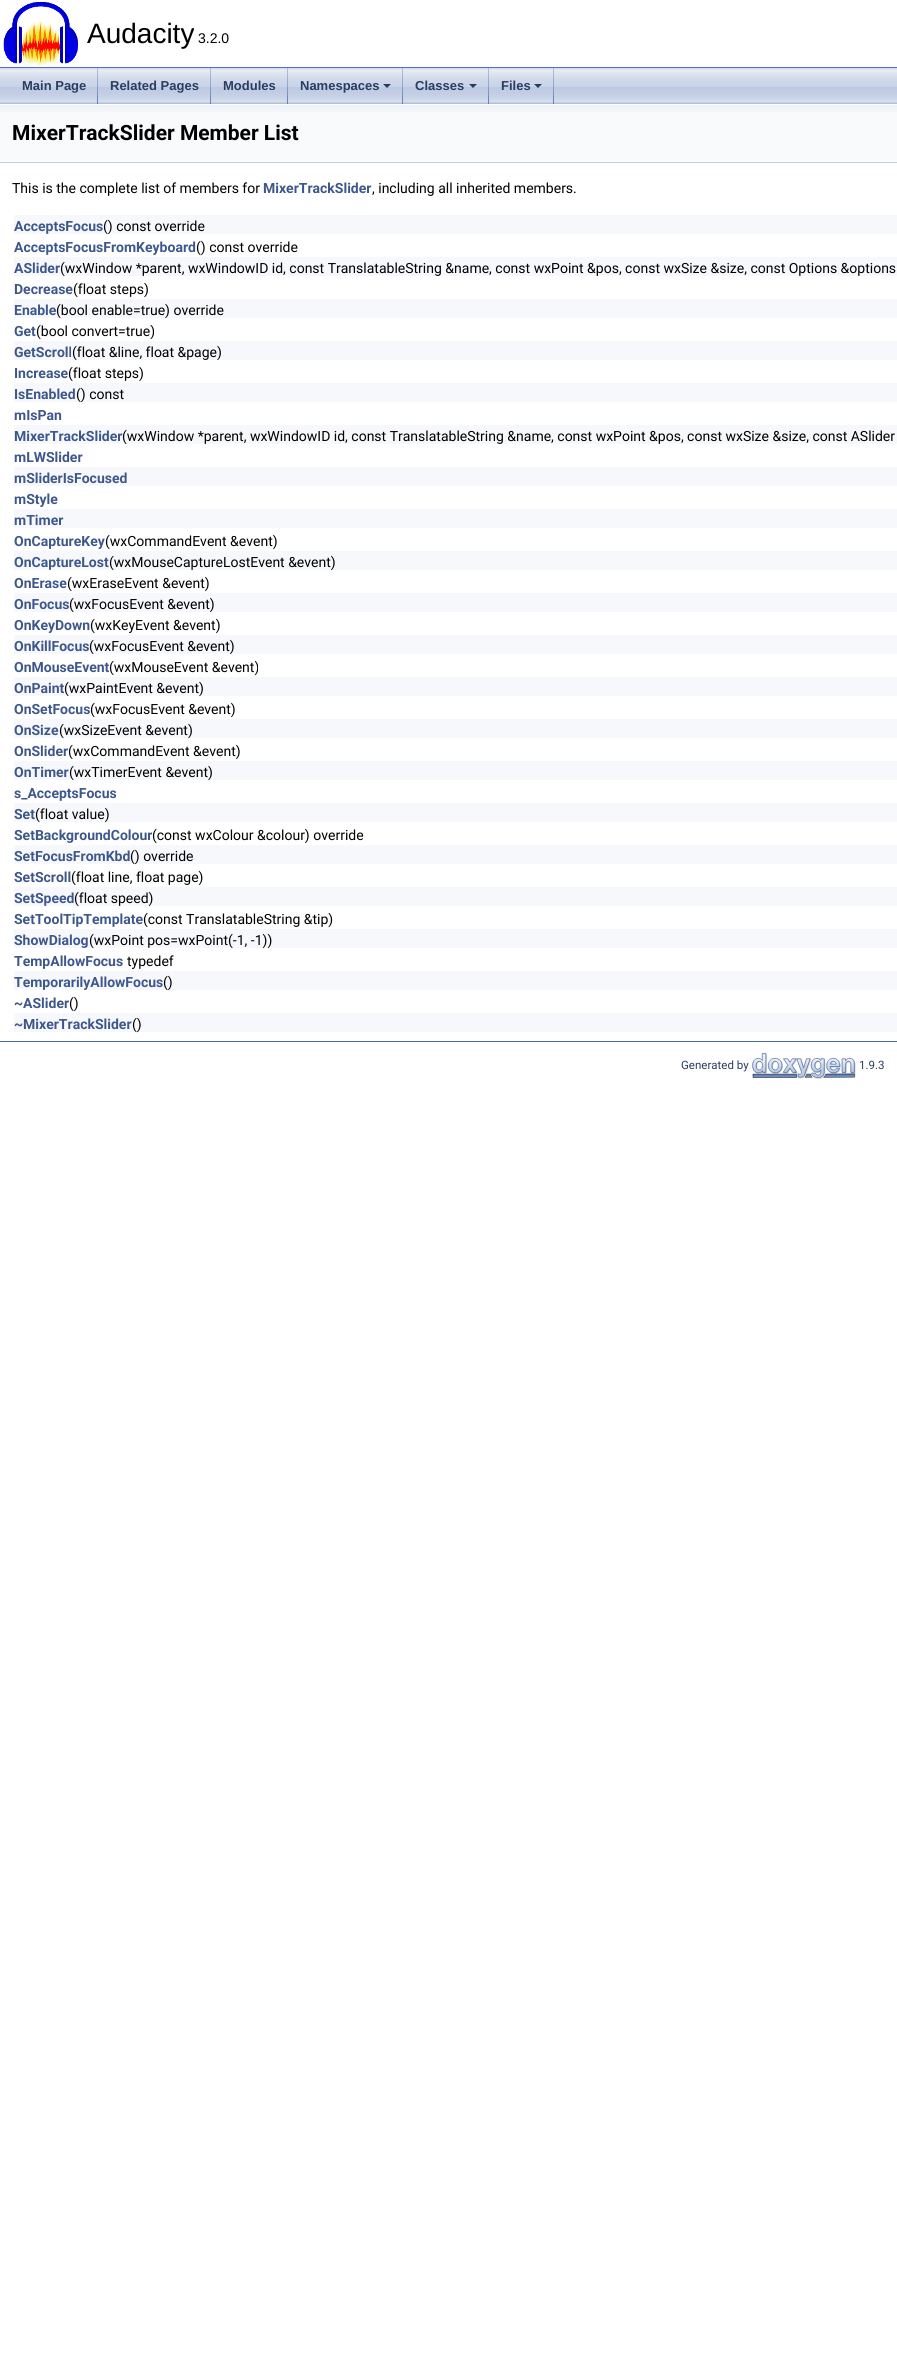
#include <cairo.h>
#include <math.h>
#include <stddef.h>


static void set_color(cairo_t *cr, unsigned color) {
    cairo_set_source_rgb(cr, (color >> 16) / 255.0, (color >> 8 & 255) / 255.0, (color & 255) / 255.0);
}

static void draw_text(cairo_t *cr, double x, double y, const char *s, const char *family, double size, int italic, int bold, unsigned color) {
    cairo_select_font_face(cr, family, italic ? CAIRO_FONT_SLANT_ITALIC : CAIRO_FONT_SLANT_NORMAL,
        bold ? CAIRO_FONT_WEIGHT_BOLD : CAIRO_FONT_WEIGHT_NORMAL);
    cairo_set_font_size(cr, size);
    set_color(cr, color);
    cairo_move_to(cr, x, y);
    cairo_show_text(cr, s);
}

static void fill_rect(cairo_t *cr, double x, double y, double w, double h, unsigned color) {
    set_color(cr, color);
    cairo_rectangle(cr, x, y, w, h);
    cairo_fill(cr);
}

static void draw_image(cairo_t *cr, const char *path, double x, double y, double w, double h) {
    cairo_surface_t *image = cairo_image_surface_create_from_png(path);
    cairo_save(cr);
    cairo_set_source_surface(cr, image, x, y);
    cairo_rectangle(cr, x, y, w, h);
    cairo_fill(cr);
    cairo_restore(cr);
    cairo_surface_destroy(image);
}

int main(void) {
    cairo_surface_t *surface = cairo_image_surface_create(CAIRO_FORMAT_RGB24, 897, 2361);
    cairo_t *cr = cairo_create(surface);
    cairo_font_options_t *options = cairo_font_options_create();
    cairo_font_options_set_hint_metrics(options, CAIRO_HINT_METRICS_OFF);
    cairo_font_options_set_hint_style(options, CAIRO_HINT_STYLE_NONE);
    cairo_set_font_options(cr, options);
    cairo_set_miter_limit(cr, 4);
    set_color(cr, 0xFFFFFF);
    cairo_paint(cr);
    fill_rect(cr, 0, 67, 897, 1, 0x5373B4);
    draw_image(cr, "assets/img1.png", 3, 1, 75, 65);
    draw_text(cr, 87, 43, "Audacity", "Liberation Sans", 28, 0, 0, 0x000000);
    draw_text(cr, 198, 43, "3.2.0", "Liberation Sans", 14, 0, 0, 0x000000);
    draw_image(cr, "assets/img2.png", 0, 68, 897, 36);
    draw_image(cr, "assets/img3.png", 97, 68, 1, 36);
    draw_text(cr, 22, 90, "Main Page", "Liberation Sans", 13, 0, 1, 0x2A3D61);
    draw_image(cr, "assets/img3.png", 210, 68, 1, 36);
    draw_text(cr, 110, 90, "Related Pages", "Liberation Sans", 13, 0, 1, 0x2A3D61);
    draw_image(cr, "assets/img3.png", 287, 68, 1, 36);
    draw_text(cr, 223, 90, "Modules", "Liberation Sans", 13, 0, 1, 0x2A3D61);
    draw_image(cr, "assets/img3.png", 402, 68, 1, 36);
    draw_text(cr, 300, 90, "Namespaces", "Liberation Sans", 13, 0, 1, 0x2A3D61);
    set_color(cr, 0x283A5D);
    cairo_new_path(cr);
    cairo_move_to(cr, 383, 84);
    cairo_line_to(cr, 391, 84);
    cairo_line_to(cr, 387, 88);
    cairo_close_path(cr);
    cairo_fill(cr);
    draw_image(cr, "assets/img3.png", 488, 68, 1, 36);
    draw_text(cr, 415, 90, "Classes", "Liberation Sans", 13, 0, 1, 0x2A3D61);
    set_color(cr, 0x283A5D);
    cairo_new_path(cr);
    cairo_move_to(cr, 469, 84);
    cairo_line_to(cr, 477, 84);
    cairo_line_to(cr, 473, 88);
    cairo_close_path(cr);
    cairo_fill(cr);
    draw_image(cr, "assets/img3.png", 553, 68, 1, 36);
    draw_text(cr, 501, 90, "Files", "Liberation Sans", 13, 0, 1, 0x2A3D61);
    set_color(cr, 0x283A5D);
    cairo_new_path(cr);
    cairo_move_to(cr, 534, 84);
    cairo_line_to(cr, 542, 84);
    cairo_line_to(cr, 538, 88);
    cairo_close_path(cr);
    cairo_fill(cr);
    fill_rect(cr, 0, 112, 897, 50, 0xF9FAFC);
    draw_image(cr, "assets/img4.png", 0, 104, 897, 8);
    fill_rect(cr, 0, 162, 897, 1, 0xC4CFE5);
    draw_text(cr, 12, 140, "MixerTrackSlider Member List", "Roboto", 21, 0, 1, 0x000000);
    draw_text(cr, 12, 193, "This is the complete list of members for", "Roboto", 14, 0, 0, 0x000000);
    draw_text(cr, 263, 193, "MixerTrackSlider", "Roboto", 14, 0, 1, 0x3D578C);
    draw_text(cr, 372, 193, ", including all inherited members.", "Roboto", 14, 0, 0, 0x000000);
    fill_rect(cr, 14, 215, 883, 19, 0xF7F8FB);
    draw_text(cr, 14, 231, "AcceptsFocus", "Roboto", 14, 0, 1, 0x3D578C);
    draw_text(cr, 103, 231, "() const override", "Roboto", 14, 0, 0, 0x000000);
    draw_text(cr, 14, 252, "AcceptsFocusFromKeyboard", "Roboto", 14, 0, 1, 0x3D578C);
    draw_text(cr, 196, 252, "() const override", "Roboto", 14, 0, 0, 0x000000);
    fill_rect(cr, 14, 257, 883, 19, 0xF7F8FB);
    draw_text(cr, 14, 273, "ASlider", "Roboto", 14, 0, 1, 0x3D578C);
    draw_text(cr, 60, 273, "(wxWindow *parent, wxWindowID id, const TranslatableString &name, const wxPoint &pos, const wxSize &size, const Options &options", "Roboto", 14, 0, 0, 0x000000);
    draw_text(cr, 14, 294, "Decrease", "Roboto", 14, 0, 1, 0x3D578C);
    draw_text(cr, 73, 294, "(float steps)", "Roboto", 14, 0, 0, 0x000000);
    fill_rect(cr, 14, 299, 883, 19, 0xF7F8FB);
    draw_text(cr, 14, 315, "Enable", "Roboto", 14, 0, 1, 0x3D578C);
    draw_text(cr, 56, 315, "(bool enable=true) override", "Roboto", 14, 0, 0, 0x000000);
    draw_text(cr, 14, 336, "Get", "Roboto", 14, 0, 1, 0x3D578C);
    draw_text(cr, 36, 336, "(bool convert=true)", "Roboto", 14, 0, 0, 0x000000);
    fill_rect(cr, 14, 341, 883, 19, 0xF7F8FB);
    draw_text(cr, 14, 357, "GetScroll", "Roboto", 14, 0, 1, 0x3D578C);
    draw_text(cr, 72, 357, "(float &line, float &page)", "Roboto", 14, 0, 0, 0x000000);
    draw_text(cr, 14, 378, "Increase", "Roboto", 14, 0, 1, 0x3D578C);
    draw_text(cr, 68, 378, "(float steps)", "Roboto", 14, 0, 0, 0x000000);
    fill_rect(cr, 14, 383, 883, 19, 0xF7F8FB);
    draw_text(cr, 14, 399, "IsEnabled", "Roboto", 14, 0, 1, 0x3D578C);
    draw_text(cr, 76, 399, "() const", "Roboto", 14, 0, 0, 0x000000);
    draw_text(cr, 14, 420, "mIsPan", "Roboto", 14, 0, 1, 0x3D578C);
    fill_rect(cr, 14, 425, 883, 19, 0xF7F8FB);
    draw_text(cr, 14, 441, "MixerTrackSlider", "Roboto", 14, 0, 1, 0x3D578C);
    draw_text(cr, 122, 441, "(wxWindow *parent, wxWindowID id, const TranslatableString &name, const wxPoint &pos, const wxSize &size, const ASlider", "Roboto", 14, 0, 0, 0x000000);
    draw_text(cr, 14, 462, "mLWSlider", "Roboto", 14, 0, 1, 0x3D578C);
    fill_rect(cr, 14, 467, 883, 19, 0xF7F8FB);
    draw_text(cr, 14, 483, "mSliderIsFocused", "Roboto", 14, 0, 1, 0x3D578C);
    draw_text(cr, 14, 504, "mStyle", "Roboto", 14, 0, 1, 0x3D578C);
    fill_rect(cr, 14, 509, 883, 19, 0xF7F8FB);
    draw_text(cr, 14, 525, "mTimer", "Roboto", 14, 0, 1, 0x3D578C);
    draw_text(cr, 14, 546, "OnCaptureKey", "Roboto", 14, 0, 1, 0x3D578C);
    draw_text(cr, 105, 546, "(wxCommandEvent &event)", "Roboto", 14, 0, 0, 0x000000);
    fill_rect(cr, 14, 551, 883, 19, 0xF7F8FB);
    draw_text(cr, 14, 567, "OnCaptureLost", "Roboto", 14, 0, 1, 0x3D578C);
    draw_text(cr, 109, 567, "(wxMouseCaptureLostEvent &event)", "Roboto", 14, 0, 0, 0x000000);
    draw_text(cr, 14, 588, "OnErase", "Roboto", 14, 0, 1, 0x3D578C);
    draw_text(cr, 67, 588, "(wxEraseEvent &event)", "Roboto", 14, 0, 0, 0x000000);
    fill_rect(cr, 14, 593, 883, 19, 0xF7F8FB);
    draw_text(cr, 14, 609, "OnFocus", "Roboto", 14, 0, 1, 0x3D578C);
    draw_text(cr, 69, 609, "(wxFocusEvent &event)", "Roboto", 14, 0, 0, 0x000000);
    draw_text(cr, 14, 630, "OnKeyDown", "Roboto", 14, 0, 1, 0x3D578C);
    draw_text(cr, 90, 630, "(wxKeyEvent &event)", "Roboto", 14, 0, 0, 0x000000);
    fill_rect(cr, 14, 635, 883, 19, 0xF7F8FB);
    draw_text(cr, 14, 651, "OnKillFocus", "Roboto", 14, 0, 1, 0x3D578C);
    draw_text(cr, 89, 651, "(wxFocusEvent &event)", "Roboto", 14, 0, 0, 0x000000);
    draw_text(cr, 14, 672, "OnMouseEvent", "Roboto", 14, 0, 1, 0x3D578C);
    draw_text(cr, 109, 672, "(wxMouseEvent &event)", "Roboto", 14, 0, 0, 0x000000);
    fill_rect(cr, 14, 677, 883, 19, 0xF7F8FB);
    draw_text(cr, 14, 693, "OnPaint", "Roboto", 14, 0, 1, 0x3D578C);
    draw_text(cr, 64, 693, "(wxPaintEvent &event)", "Roboto", 14, 0, 0, 0x000000);
    draw_text(cr, 14, 714, "OnSetFocus", "Roboto", 14, 0, 1, 0x3D578C);
    draw_text(cr, 90, 714, "(wxFocusEvent &event)", "Roboto", 14, 0, 0, 0x000000);
    fill_rect(cr, 14, 719, 883, 19, 0xF7F8FB);
    draw_text(cr, 14, 735, "OnSize", "Roboto", 14, 0, 1, 0x3D578C);
    draw_text(cr, 59, 735, "(wxSizeEvent &event)", "Roboto", 14, 0, 0, 0x000000);
    draw_text(cr, 14, 756, "OnSlider", "Roboto", 14, 0, 1, 0x3D578C);
    draw_text(cr, 68, 756, "(wxCommandEvent &event)", "Roboto", 14, 0, 0, 0x000000);
    fill_rect(cr, 14, 761, 883, 19, 0xF7F8FB);
    draw_text(cr, 14, 777, "OnTimer", "Roboto", 14, 0, 1, 0x3D578C);
    draw_text(cr, 69, 777, "(wxTimerEvent &event)", "Roboto", 14, 0, 0, 0x000000);
    draw_text(cr, 14, 798, "s_AcceptsFocus", "Roboto", 14, 0, 1, 0x3D578C);
    fill_rect(cr, 14, 803, 883, 19, 0xF7F8FB);
    draw_text(cr, 14, 819, "Set", "Roboto", 14, 0, 1, 0x3D578C);
    draw_text(cr, 35, 819, "(float value)", "Roboto", 14, 0, 0, 0x000000);
    draw_text(cr, 14, 840, "SetBackgroundColour", "Roboto", 14, 0, 1, 0x3D578C);
    draw_text(cr, 152, 840, "(const wxColour &colour) override", "Roboto", 14, 0, 0, 0x000000);
    fill_rect(cr, 14, 845, 883, 19, 0xF7F8FB);
    draw_text(cr, 14, 861, "SetFocusFromKbd", "Roboto", 14, 0, 1, 0x3D578C);
    draw_text(cr, 130, 861, "() override", "Roboto", 14, 0, 0, 0x000000);
    draw_text(cr, 14, 882, "SetScroll", "Roboto", 14, 0, 1, 0x3D578C);
    draw_text(cr, 71, 882, "(float line, float page)", "Roboto", 14, 0, 0, 0x000000);
    fill_rect(cr, 14, 887, 883, 19, 0xF7F8FB);
    draw_text(cr, 14, 903, "SetSpeed", "Roboto", 14, 0, 1, 0x3D578C);
    draw_text(cr, 74, 903, "(float speed)", "Roboto", 14, 0, 0, 0x000000);
    draw_text(cr, 14, 924, "SetToolTipTemplate", "Roboto", 14, 0, 1, 0x3D578C);
    draw_text(cr, 143, 924, "(const TranslatableString &tip)", "Roboto", 14, 0, 0, 0x000000);
    fill_rect(cr, 14, 929, 883, 19, 0xF7F8FB);
    draw_text(cr, 14, 945, "ShowDialog", "Roboto", 14, 0, 1, 0x3D578C);
    draw_text(cr, 89, 945, "(wxPoint pos=wxPoint(-1, -1))", "Roboto", 14, 0, 0, 0x000000);
    draw_text(cr, 14, 966, "TempAllowFocus", "Roboto", 14, 0, 1, 0x3D578C);
    draw_text(cr, 127, 966, "typedef", "Roboto", 14, 0, 0, 0x000000);
    fill_rect(cr, 14, 971, 883, 19, 0xF7F8FB);
    draw_text(cr, 14, 987, "TemporarilyAllowFocus", "Roboto", 14, 0, 1, 0x3D578C);
    draw_text(cr, 163, 987, "()", "Roboto", 14, 0, 0, 0x000000);
    draw_text(cr, 14, 1008, "~ASlider", "Roboto", 14, 0, 1, 0x3D578C);
    draw_text(cr, 69, 1008, "()", "Roboto", 14, 0, 0, 0x000000);
    fill_rect(cr, 14, 1013, 883, 19, 0xF7F8FB);
    draw_text(cr, 14, 1029, "~MixerTrackSlider", "Roboto", 14, 0, 1, 0x3D578C);
    draw_text(cr, 132, 1029, "()", "Roboto", 14, 0, 0, 0x000000);
    fill_rect(cr, 0, 1041, 897, 1, 0x4A6AAA);
    draw_text(cr, 681, 1069, "Generated by", "Roboto", 11.5, 0, 0, 0x2A3D61);
    draw_image(cr, "assets/img5.png", 752, 1053, 104, 26);
    draw_text(cr, 859, 1069, "1.9.3", "Roboto", 11.5, 0, 0, 0x2A3D61);
    cairo_surface_write_to_png(surface, "output.png");
    cairo_font_options_destroy(options);
    cairo_destroy(cr);
    cairo_surface_destroy(surface);
    return 0;
}
